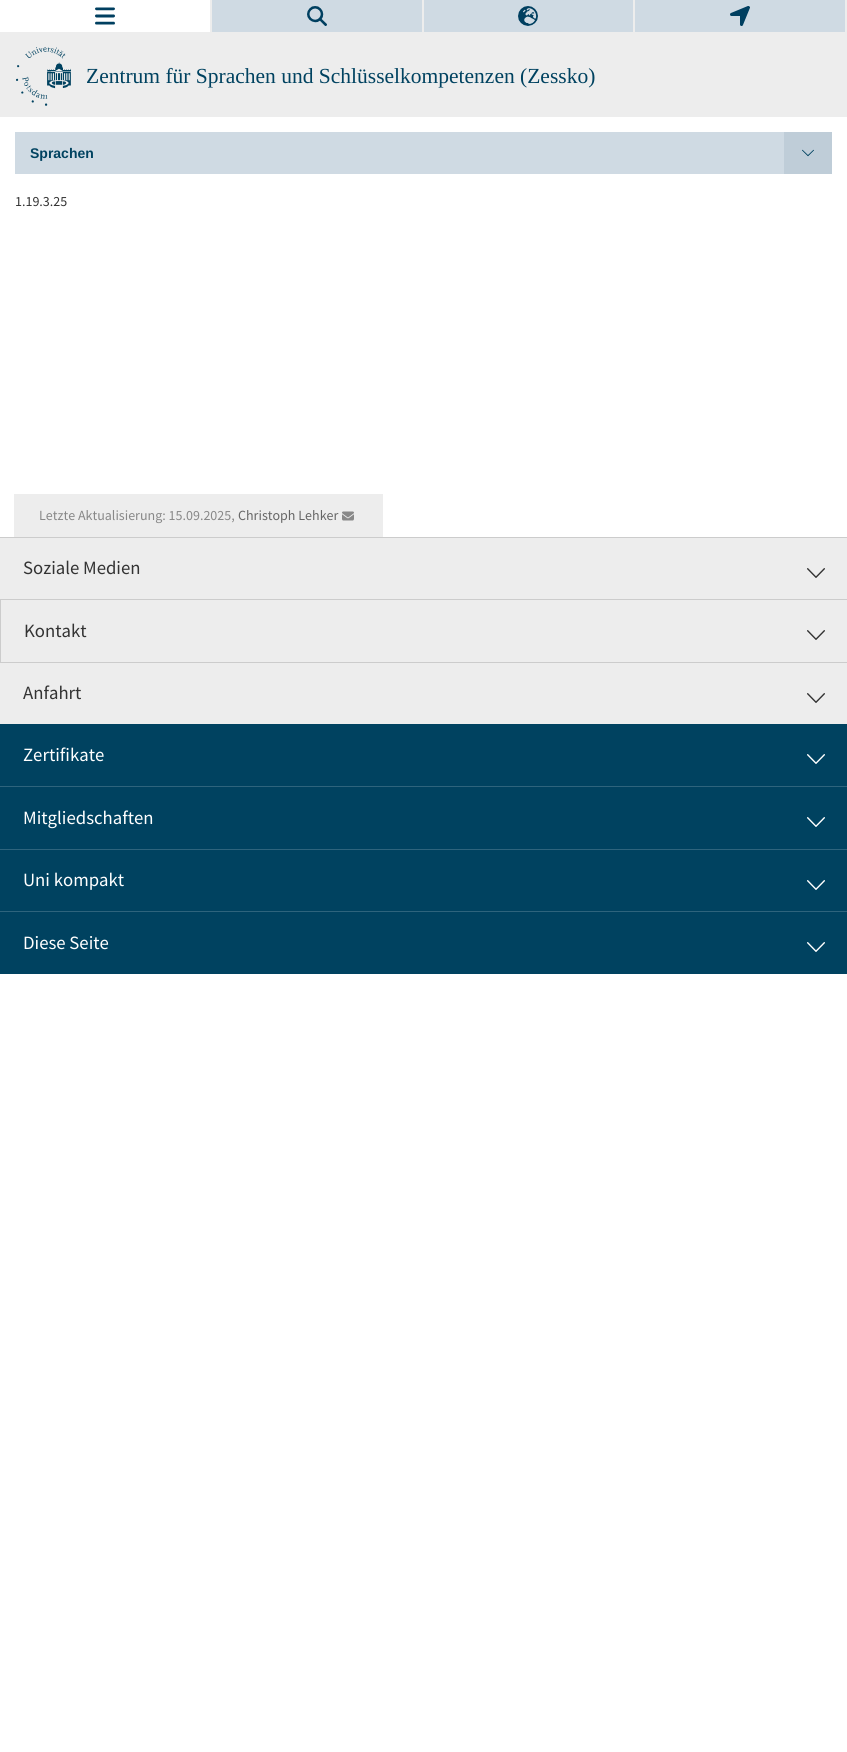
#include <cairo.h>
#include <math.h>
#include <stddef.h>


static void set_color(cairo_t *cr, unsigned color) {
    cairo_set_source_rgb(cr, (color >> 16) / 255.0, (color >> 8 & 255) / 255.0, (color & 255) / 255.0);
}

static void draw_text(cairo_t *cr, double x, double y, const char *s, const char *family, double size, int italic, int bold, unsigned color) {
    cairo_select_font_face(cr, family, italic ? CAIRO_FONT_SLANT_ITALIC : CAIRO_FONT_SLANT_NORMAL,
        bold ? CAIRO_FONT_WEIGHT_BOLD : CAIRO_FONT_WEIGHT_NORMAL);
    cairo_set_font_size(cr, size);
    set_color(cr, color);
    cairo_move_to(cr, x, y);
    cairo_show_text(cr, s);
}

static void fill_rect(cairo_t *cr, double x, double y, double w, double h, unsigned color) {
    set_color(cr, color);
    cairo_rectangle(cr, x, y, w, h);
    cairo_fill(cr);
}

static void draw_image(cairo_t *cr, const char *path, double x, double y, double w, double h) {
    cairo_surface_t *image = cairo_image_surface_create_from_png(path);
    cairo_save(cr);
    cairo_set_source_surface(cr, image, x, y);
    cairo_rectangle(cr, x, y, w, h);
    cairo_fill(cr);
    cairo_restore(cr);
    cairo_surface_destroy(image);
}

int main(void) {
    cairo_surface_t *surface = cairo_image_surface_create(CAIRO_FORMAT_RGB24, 847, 1752);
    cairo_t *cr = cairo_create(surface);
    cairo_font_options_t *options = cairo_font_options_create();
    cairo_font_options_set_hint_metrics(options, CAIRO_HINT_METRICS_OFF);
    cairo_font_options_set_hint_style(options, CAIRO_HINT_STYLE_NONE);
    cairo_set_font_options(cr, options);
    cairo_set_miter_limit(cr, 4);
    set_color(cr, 0xFFFFFF);
    cairo_paint(cr);
    fill_rect(cr, 210, 0, 2, 32, 0xEDEDED);
    draw_image(cr, "assets/img1.png", 95, 7, 20, 18);
    fill_rect(cr, 212, 0, 210, 32, 0xCFDAE3);
    fill_rect(cr, 422, 0, 2, 32, 0xEDEDED);
    draw_image(cr, "assets/img2.png", 307, 6, 20, 20);
    fill_rect(cr, 424, 0, 209, 32, 0xCFDAE3);
    fill_rect(cr, 633, 0, 2, 32, 0xEDEDED);
    draw_image(cr, "assets/img3.png", 518, 6, 20, 20);
    fill_rect(cr, 635, 0, 210, 32, 0xCFDAE3);
    fill_rect(cr, 845, 0, 2, 32, 0xEDEDED);
    draw_image(cr, "assets/img4.png", 730, 6, 20, 20);
    fill_rect(cr, 0, 32, 847, 85, 0xEDEDED);
    draw_image(cr, "assets/img5.png", 16, 47, 55, 59);
    draw_text(cr, 86, 83, "Zentrum für Sprachen und Schlüsselkompetenzen (Zessko)", "Liberation Serif", 21.5, 0, 0, 0x004260);
    fill_rect(cr, 15, 132, 769, 42, 0xCFDAE3);
    draw_text(cr, 30, 158, "Sprachen", "Liberation Sans", 14, 0, 1, 0x004260);
    fill_rect(cr, 784, 132, 48, 42, 0xBFCDD8);
    draw_image(cr, "assets/img6.png", 802, 149, 12, 8);
    draw_text(cr, 15, 206, "1.19.3.25", "Source Sans Pro", 14, 0, 0, 0x333333);
    fill_rect(cr, 14, 494, 369, 43, 0xEDEDED);
    draw_text(cr, 39, 520, "Letzte Aktualisierung: 15.09.2025,", "Source Sans Pro", 14, 0, 0, 0x888888);
    draw_text(cr, 238, 520, "Christoph Lehker", "Source Sans Pro", 14, 0, 0, 0x666666);
    draw_image(cr, "assets/img7.png", 342, 511, 12, 10);
    fill_rect(cr, 0, 538, 847, 186, 0xEDEDED);
    fill_rect(cr, 0, 537, 847, 1, 0xCCCCCC);
    fill_rect(cr, 0, 599, 847, 1, 0xCCCCCC);
    draw_text(cr, 23, 574, "Soziale Medien", "Source Sans Pro", 18.75, 0, 0, 0x333333);
    draw_image(cr, "assets/img8.png", 807, 568, 18, 10);
    fill_rect(cr, 0, 662, 847, 1, 0xCCCCCC);
    fill_rect(cr, 0, 600, 1, 63, 0xCCCCCC);
    draw_text(cr, 24, 637, "Kontakt", "Source Sans Pro", 18.75, 0, 0, 0x333333);
    draw_image(cr, "assets/img8.png", 807, 630, 18, 10);
    draw_text(cr, 23, 699, "Anfahrt", "Source Sans Pro", 18.75, 0, 0, 0x333333);
    draw_image(cr, "assets/img8.png", 807, 693, 18, 10);
    fill_rect(cr, 0, 724, 847, 250, 0x004260);
    fill_rect(cr, 0, 786, 847, 1, 0x2E647D);
    draw_text(cr, 23, 761, "Zertifikate", "Source Sans Pro", 18.75, 0, 0, 0xFFFFFF);
    draw_image(cr, "assets/img9.png", 807, 754, 18, 10);
    fill_rect(cr, 0, 849, 847, 1, 0x2E647D);
    draw_text(cr, 23, 824, "Mitgliedschaften", "Source Sans Pro", 18.75, 0, 0, 0xFFFFFF);
    draw_image(cr, "assets/img10.png", 807, 817, 18, 10);
    fill_rect(cr, 0, 911, 847, 1, 0x2E647D);
    draw_text(cr, 23, 886, "Uni kompakt", "Source Sans Pro", 18.75, 0, 0, 0xFFFFFF);
    draw_image(cr, "assets/img10.png", 807, 880, 18, 10);
    draw_text(cr, 23, 949, "Diese Seite", "Source Sans Pro", 18.75, 0, 0, 0xFFFFFF);
    draw_image(cr, "assets/img10.png", 807, 942, 18, 10);
    cairo_surface_write_to_png(surface, "output.png");
    cairo_font_options_destroy(options);
    cairo_destroy(cr);
    cairo_surface_destroy(surface);
    return 0;
}
